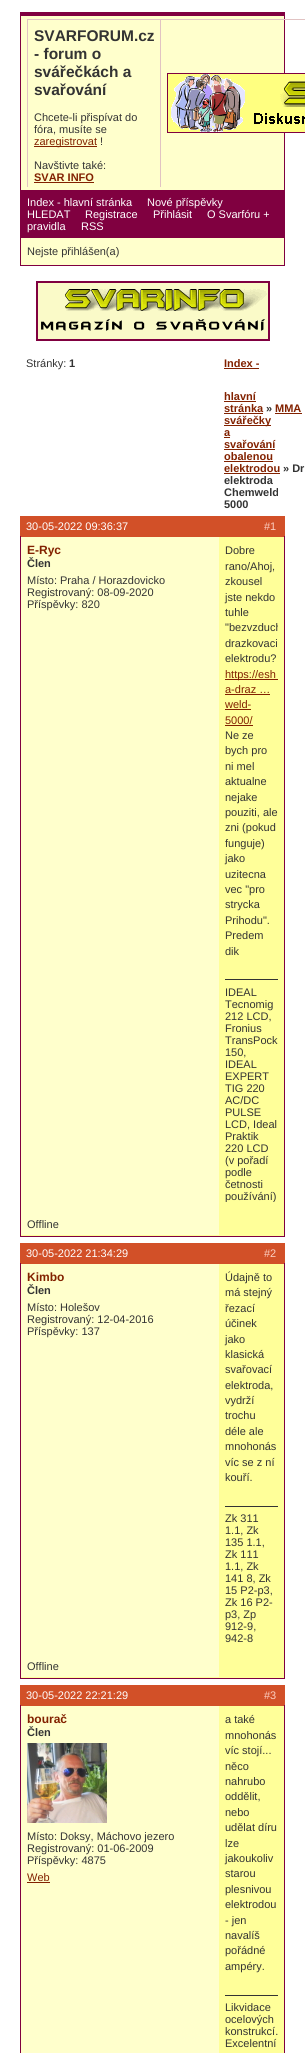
#include <cairo.h>
#include <math.h>
#include <stddef.h>


static void set_color(cairo_t *cr, unsigned color) {
    cairo_set_source_rgb(cr, (color >> 16) / 255.0, (color >> 8 & 255) / 255.0, (color & 255) / 255.0);
}

static void draw_text(cairo_t *cr, double x, double y, const char *s, const char *family, double size, int italic, int bold, unsigned color) {
    cairo_select_font_face(cr, family, italic ? CAIRO_FONT_SLANT_ITALIC : CAIRO_FONT_SLANT_NORMAL,
        bold ? CAIRO_FONT_WEIGHT_BOLD : CAIRO_FONT_WEIGHT_NORMAL);
    cairo_set_font_size(cr, size);
    set_color(cr, color);
    cairo_move_to(cr, x, y);
    cairo_show_text(cr, s);
}

static void fill_rect(cairo_t *cr, double x, double y, double w, double h, unsigned color) {
    set_color(cr, color);
    cairo_rectangle(cr, x, y, w, h);
    cairo_fill(cr);
}

static void draw_image(cairo_t *cr, const char *path, double x, double y, double w, double h) {
    cairo_surface_t *image = cairo_image_surface_create_from_png(path);
    cairo_save(cr);
    cairo_set_source_surface(cr, image, x, y);
    cairo_rectangle(cr, x, y, w, h);
    cairo_fill(cr);
    cairo_restore(cr);
    cairo_surface_destroy(image);
}

int main(void) {
    cairo_surface_t *surface = cairo_image_surface_create(CAIRO_FORMAT_RGB24, 305, 2053);
    cairo_t *cr = cairo_create(surface);
    cairo_font_options_t *options = cairo_font_options_create();
    cairo_font_options_set_hint_metrics(options, CAIRO_HINT_METRICS_OFF);
    cairo_font_options_set_hint_style(options, CAIRO_HINT_STYLE_NONE);
    cairo_set_font_options(cr, options);
    cairo_set_miter_limit(cr, 4);
    set_color(cr, 0xFFFFFF);
    cairo_paint(cr);
    fill_rect(cr, 21, 16, 263, 249, 0xFFFFCC);
    fill_rect(cr, 20, 12, 265, 4, 0x800040);
    fill_rect(cr, 284, 12, 1, 254, 0x800040);
    fill_rect(cr, 20, 265, 265, 1, 0x800040);
    fill_rect(cr, 20, 12, 1, 254, 0x800040);
    fill_rect(cr, 27, 19, 278, 1, 0xE1C3C3);
    fill_rect(cr, 27, 19, 1, 168, 0xE1C3C3);
    draw_text(cr, 34, 41, "SVARFORUM.cz", "Liberation Sans", 15.5, 0, 1, 0x333333);
    draw_text(cr, 34, 59, "- forum o", "Liberation Sans", 15.5, 0, 1, 0x333333);
    draw_text(cr, 34, 77, "svářečkách a", "Liberation Sans", 15.5, 0, 1, 0x333333);
    draw_text(cr, 34, 95, "svařování", "Liberation Sans", 15.5, 0, 1, 0x333333);
    draw_text(cr, 34, 121, "Chcete-li přispívat do", "Liberation Sans", 11, 0, 0, 0x333333);
    draw_text(cr, 34, 133, "fóra, musíte se", "Liberation Sans", 11, 0, 0, 0x333333);
    fill_rect(cr, 34, 146, 63, 1, 0x822100);
    draw_text(cr, 34, 145, "zaregistrovat", "Liberation Sans", 11, 0, 0, 0x822100);
    draw_text(cr, 100, 145, "!", "Liberation Sans", 11, 0, 0, 0x333333);
    draw_text(cr, 34, 169, "Navštivte také:", "Liberation Sans", 11, 0, 0, 0x333333);
    draw_text(cr, 34, 181, "SVAR INFO", "Liberation Sans", 11, 0, 1, 0x822100);
    fill_rect(cr, 34, 182, 60, 1, 0x822100);
    fill_rect(cr, 160, 19, 1, 168, 0xE1C3C3);
    draw_image(cr, "assets/img1.png", 167, 73, 138, 60);
    fill_rect(cr, 21, 190, 263, 48, 0x800040);
    draw_text(cr, 27, 206, "Index - hlavní stránka", "Liberation Sans", 11, 0, 0, 0xFFFFFF);
    draw_text(cr, 147, 206, "Nové příspěvky", "Liberation Sans", 11, 0, 0, 0xFFFFFF);
    draw_text(cr, 27, 218, "HLEDAT", "Liberation Sans", 11, 0, 0, 0xFFFFFF);
    draw_text(cr, 85, 218, "Registrace", "Liberation Sans", 11, 0, 0, 0xFFFFFF);
    draw_text(cr, 153, 218, "Přihlásit", "Liberation Sans", 11, 0, 0, 0xFFFFFF);
    draw_text(cr, 207, 218, "O Svarfóru +", "Liberation Sans", 11, 0, 0, 0xFFFFFF);
    draw_text(cr, 27, 230, "pravidla", "Liberation Sans", 11, 0, 0, 0xFFFFFF);
    draw_text(cr, 81, 230, "RSS", "Liberation Sans", 11, 0, 0, 0xFFFFFF);
    draw_text(cr, 27, 255, "Nejste přihlášen(a)", "Liberation Sans", 11, 0, 0, 0x333333);
    draw_image(cr, "assets/img2.png", 36, 281, 234, 60);
    draw_text(cr, 26, 367, "Stránky:", "Liberation Sans", 11, 0, 0, 0x333333);
    draw_text(cr, 69, 367, "1", "Liberation Sans", 11, 0, 1, 0x333333);
    draw_text(cr, 224, 367, "Index -", "Liberation Sans", 11, 0, 1, 0x822100);
    fill_rect(cr, 224, 368, 35, 1, 0x822100);
    draw_text(cr, 224, 400, "hlavní", "Liberation Sans", 11, 0, 1, 0x822100);
    fill_rect(cr, 224, 401, 32, 1, 0x822100);
    draw_text(cr, 224, 412, "stránka", "Liberation Sans", 11, 0, 1, 0x822100);
    fill_rect(cr, 224, 413, 39, 1, 0x822100);
    draw_text(cr, 266, 412, "»", "Liberation Sans", 11, 0, 1, 0x333333);
    draw_text(cr, 275, 412, "MMA", "Liberation Sans", 11, 0, 1, 0x822100);
    fill_rect(cr, 275, 413, 27, 1, 0x822100);
    fill_rect(cr, 224, 425, 47, 1, 0x822100);
    draw_text(cr, 224, 424, "svářečky", "Liberation Sans", 11, 0, 1, 0x822100);
    draw_text(cr, 224, 436, "a", "Liberation Sans", 11, 0, 1, 0x822100);
    fill_rect(cr, 224, 437, 6, 1, 0x822100);
    draw_text(cr, 224, 448, "svařování", "Liberation Sans", 11, 0, 1, 0x822100);
    fill_rect(cr, 224, 449, 51, 1, 0x822100);
    draw_text(cr, 224, 460, "obalenou", "Liberation Sans", 11, 0, 1, 0x822100);
    fill_rect(cr, 224, 461, 49, 1, 0x822100);
    draw_text(cr, 224, 472, "elektrodou", "Liberation Sans", 11, 0, 1, 0x822100);
    fill_rect(cr, 224, 473, 56, 1, 0x822100);
    draw_text(cr, 283, 472, "» Dr", "Liberation Sans", 11, 0, 1, 0x333333);
    draw_text(cr, 224, 484, "elektroda", "Liberation Sans", 11, 0, 1, 0x333333);
    draw_text(cr, 224, 496, "Chemweld", "Liberation Sans", 11, 0, 1, 0x333333);
    draw_text(cr, 224, 508, "5000", "Liberation Sans", 11, 0, 1, 0x333333);
    fill_rect(cr, 20, 516, 265, 21, 0xD25028);
    draw_text(cr, 26, 530, "30-05-2022 09:36:37", "Liberation Sans", 11, 0, 0, 0xFFFFFF);
    draw_text(cr, 264, 530, "#1", "Liberation Sans", 11, 0, 0, 0xFCCFC1);
    fill_rect(cr, 21, 537, 263, 699, 0xFFFF99);
    fill_rect(cr, 284, 536, 1, 701, 0x800040);
    fill_rect(cr, 20, 1236, 265, 1, 0x800040);
    fill_rect(cr, 20, 536, 1, 701, 0x800040);
    fill_rect(cr, 21, 537, 198, 698, 0xFFFFCC);
    draw_text(cr, 27, 554, "E-Ryc", "Liberation Sans", 12, 0, 1, 0x822100);
    draw_text(cr, 27, 567, "Člen", "Liberation Sans", 11, 0, 1, 0x333333);
    draw_text(cr, 27, 584, "Místo: Praha / Horazdovicko", "Liberation Sans", 11, 0, 0, 0x333333);
    draw_text(cr, 27, 596, "Registrovaný: 08-09-2020", "Liberation Sans", 11, 0, 0, 0x333333);
    draw_text(cr, 27, 608, "Příspěvky: 820", "Liberation Sans", 11, 0, 0, 0x333333);
    draw_text(cr, 225, 554, "Dobre", "Liberation Sans", 11, 0, 0, 0x333333);
    draw_text(cr, 225, 570, "rano/Ahoj,", "Liberation Sans", 11, 0, 0, 0x333333);
    draw_text(cr, 225, 585, "zkousel", "Liberation Sans", 11, 0, 0, 0x333333);
    draw_text(cr, 225, 601, "jste nekdo", "Liberation Sans", 11, 0, 0, 0x333333);
    draw_text(cr, 225, 616, "tuhle", "Liberation Sans", 11, 0, 0, 0x333333);
    cairo_save(cr);
    cairo_rectangle(cr, 225, 543, 53, 416);
    cairo_clip(cr);
    draw_text(cr, 225, 631, "\"bezvzduch", "Liberation Sans", 11, 0, 0, 0x333333);
    cairo_restore(cr);
    draw_text(cr, 225, 647, "drazkovaci", "Liberation Sans", 11, 0, 0, 0x333333);
    draw_text(cr, 225, 662, "elektrodu?", "Liberation Sans", 11, 0, 0, 0x333333);
    fill_rect(cr, 225, 679, 53, 1, 0x822100);
    draw_text(cr, 225, 678, "https://esh", "Liberation Sans", 11, 0, 0, 0x822100);
    draw_text(cr, 225, 693, "a-draz …", "Liberation Sans", 11, 0, 0, 0x822100);
    fill_rect(cr, 225, 694, 45, 1, 0x822100);
    draw_text(cr, 225, 708, "weld-", "Liberation Sans", 11, 0, 0, 0x822100);
    fill_rect(cr, 225, 709, 26, 1, 0x822100);
    draw_text(cr, 225, 724, "5000/", "Liberation Sans", 11, 0, 0, 0x822100);
    fill_rect(cr, 225, 725, 28, 1, 0x822100);
    draw_text(cr, 225, 739, "Ne ze", "Liberation Sans", 11, 0, 0, 0x333333);
    draw_text(cr, 225, 754, "bych pro", "Liberation Sans", 11, 0, 0, 0x333333);
    draw_text(cr, 225, 770, "ni mel", "Liberation Sans", 11, 0, 0, 0x333333);
    draw_text(cr, 225, 785, "aktualne", "Liberation Sans", 11, 0, 0, 0x333333);
    draw_text(cr, 225, 801, "nejake", "Liberation Sans", 11, 0, 0, 0x333333);
    draw_text(cr, 225, 816, "pouziti, ale", "Liberation Sans", 11, 0, 0, 0x333333);
    draw_text(cr, 225, 831, "zni (pokud", "Liberation Sans", 11, 0, 0, 0x333333);
    draw_text(cr, 225, 847, "funguje)", "Liberation Sans", 11, 0, 0, 0x333333);
    draw_text(cr, 225, 862, "jako", "Liberation Sans", 11, 0, 0, 0x333333);
    draw_text(cr, 225, 878, "uzitecna", "Liberation Sans", 11, 0, 0, 0x333333);
    draw_text(cr, 225, 893, "vec \"pro", "Liberation Sans", 11, 0, 0, 0x333333);
    draw_text(cr, 225, 908, "strycka", "Liberation Sans", 11, 0, 0, 0x333333);
    draw_text(cr, 225, 924, "Prihodu\".", "Liberation Sans", 11, 0, 0, 0x333333);
    draw_text(cr, 225, 939, "Predem", "Liberation Sans", 11, 0, 0, 0x333333);
    draw_text(cr, 225, 955, "dik", "Liberation Sans", 11, 0, 0, 0x333333);
    fill_rect(cr, 225, 979, 53, 1, 0x333333);
    draw_text(cr, 225, 996, "IDEAL", "Liberation Sans", 11, 0, 0, 0x333333);
    draw_text(cr, 225, 1008, "Tecnomig", "Liberation Sans", 11, 0, 0, 0x333333);
    draw_text(cr, 225, 1020, "212 LCD,", "Liberation Sans", 11, 0, 0, 0x333333);
    draw_text(cr, 225, 1032, "Fronius", "Liberation Sans", 11, 0, 0, 0x333333);
    draw_text(cr, 225, 1044, "TransPock", "Liberation Sans", 11, 0, 0, 0x333333);
    draw_text(cr, 225, 1056, "150,", "Liberation Sans", 11, 0, 0, 0x333333);
    draw_text(cr, 225, 1068, "IDEAL", "Liberation Sans", 11, 0, 0, 0x333333);
    draw_text(cr, 225, 1080, "EXPERT", "Liberation Sans", 11, 0, 0, 0x333333);
    draw_text(cr, 225, 1092, "TIG 220", "Liberation Sans", 11, 0, 0, 0x333333);
    draw_text(cr, 225, 1104, "AC/DC", "Liberation Sans", 11, 0, 0, 0x333333);
    draw_text(cr, 225, 1116, "PULSE", "Liberation Sans", 11, 0, 0, 0x333333);
    draw_text(cr, 225, 1128, "LCD, Ideal", "Liberation Sans", 11, 0, 0, 0x333333);
    draw_text(cr, 225, 1140, "Praktik", "Liberation Sans", 11, 0, 0, 0x333333);
    draw_text(cr, 225, 1152, "220 LCD", "Liberation Sans", 11, 0, 0, 0x333333);
    draw_text(cr, 225, 1164, "(v pořadí", "Liberation Sans", 11, 0, 0, 0x333333);
    draw_text(cr, 225, 1176, "podle", "Liberation Sans", 11, 0, 0, 0x333333);
    draw_text(cr, 225, 1188, "četnosti", "Liberation Sans", 11, 0, 0, 0x333333);
    cairo_save(cr);
    cairo_rectangle(cr, 225, 959, 53, 243);
    cairo_clip(cr);
    draw_text(cr, 225, 1200, "používání)", "Liberation Sans", 11, 0, 0, 0x333333);
    cairo_restore(cr);
    draw_text(cr, 27, 1228, "Offline", "Liberation Sans", 11, 0, 0, 0x333333);
    fill_rect(cr, 20, 1243, 265, 21, 0xD25028);
    draw_text(cr, 26, 1257, "30-05-2022 21:34:29", "Liberation Sans", 11, 0, 0, 0xFFFFFF);
    draw_text(cr, 264, 1257, "#2", "Liberation Sans", 11, 0, 0, 0xFCCFC1);
    fill_rect(cr, 21, 1264, 263, 414, 0xFFFF99);
    fill_rect(cr, 284, 1263, 1, 416, 0x800040);
    fill_rect(cr, 20, 1678, 265, 1, 0x800040);
    fill_rect(cr, 20, 1263, 1, 416, 0x800040);
    fill_rect(cr, 21, 1264, 198, 413, 0xFFFFCC);
    draw_text(cr, 27, 1281, "Kimbo", "Liberation Sans", 12, 0, 1, 0x822100);
    draw_text(cr, 27, 1294, "Člen", "Liberation Sans", 11, 0, 1, 0x333333);
    draw_text(cr, 27, 1311, "Místo: Holešov", "Liberation Sans", 11, 0, 0, 0x333333);
    draw_text(cr, 27, 1323, "Registrovaný: 12-04-2016", "Liberation Sans", 11, 0, 0, 0x333333);
    draw_text(cr, 27, 1335, "Příspěvky: 137", "Liberation Sans", 11, 0, 0, 0x333333);
    draw_text(cr, 225, 1281, "Údajně to", "Liberation Sans", 11, 0, 0, 0x333333);
    draw_text(cr, 225, 1296, "má stejný", "Liberation Sans", 11, 0, 0, 0x333333);
    draw_text(cr, 225, 1312, "řezací", "Liberation Sans", 11, 0, 0, 0x333333);
    draw_text(cr, 225, 1327, "účinek", "Liberation Sans", 11, 0, 0, 0x333333);
    draw_text(cr, 225, 1343, "jako", "Liberation Sans", 11, 0, 0, 0x333333);
    draw_text(cr, 225, 1358, "klasická", "Liberation Sans", 11, 0, 0, 0x333333);
    draw_text(cr, 225, 1373, "svařovací", "Liberation Sans", 11, 0, 0, 0x333333);
    draw_text(cr, 225, 1389, "elektroda,", "Liberation Sans", 11, 0, 0, 0x333333);
    draw_text(cr, 225, 1404, "vydrží", "Liberation Sans", 11, 0, 0, 0x333333);
    draw_text(cr, 225, 1419, "trochu", "Liberation Sans", 11, 0, 0, 0x333333);
    draw_text(cr, 225, 1435, "déle ale", "Liberation Sans", 11, 0, 0, 0x333333);
    draw_text(cr, 225, 1450, "mnohonás", "Liberation Sans", 11, 0, 0, 0x333333);
    draw_text(cr, 225, 1466, "víc se z ní", "Liberation Sans", 11, 0, 0, 0x333333);
    draw_text(cr, 225, 1481, "kouří.", "Liberation Sans", 11, 0, 0, 0x333333);
    fill_rect(cr, 225, 1506, 53, 1, 0x333333);
    draw_text(cr, 225, 1522, "Zk 311", "Liberation Sans", 11, 0, 0, 0x333333);
    draw_text(cr, 225, 1534, "1.1, Zk", "Liberation Sans", 11, 0, 0, 0x333333);
    draw_text(cr, 225, 1546, "135 1.1,", "Liberation Sans", 11, 0, 0, 0x333333);
    draw_text(cr, 225, 1558, "Zk 111", "Liberation Sans", 11, 0, 0, 0x333333);
    draw_text(cr, 225, 1570, "1.1, Zk", "Liberation Sans", 11, 0, 0, 0x333333);
    draw_text(cr, 225, 1582, "141 8, Zk", "Liberation Sans", 11, 0, 0, 0x333333);
    draw_text(cr, 225, 1594, "15 P2-p3,", "Liberation Sans", 11, 0, 0, 0x333333);
    draw_text(cr, 225, 1606, "Zk 16 P2-", "Liberation Sans", 11, 0, 0, 0x333333);
    draw_text(cr, 225, 1618, "p3, Zp", "Liberation Sans", 11, 0, 0, 0x333333);
    draw_text(cr, 225, 1630, "912-9,", "Liberation Sans", 11, 0, 0, 0x333333);
    draw_text(cr, 225, 1642, "942-8", "Liberation Sans", 11, 0, 0, 0x333333);
    draw_text(cr, 27, 1670, "Offline", "Liberation Sans", 11, 0, 0, 0x333333);
    fill_rect(cr, 20, 1685, 265, 21, 0xD25028);
    draw_text(cr, 26, 1699, "30-05-2022 22:21:29", "Liberation Sans", 11, 0, 0, 0xFFFFFF);
    draw_text(cr, 264, 1699, "#3", "Liberation Sans", 11, 0, 0, 0xFCCFC1);
    fill_rect(cr, 219, 1706, 65, 347, 0xFFFF99);
    fill_rect(cr, 284, 1705, 1, 348, 0x800040);
    fill_rect(cr, 20, 1705, 1, 348, 0x800040);
    fill_rect(cr, 21, 1706, 198, 347, 0xFFFFCC);
    draw_text(cr, 27, 1723, "bourač", "Liberation Sans", 12, 0, 1, 0x822100);
    draw_text(cr, 27, 1736, "Člen", "Liberation Sans", 11, 0, 1, 0x333333);
    draw_image(cr, "assets/img3.png", 27, 1743, 80, 80);
    draw_text(cr, 27, 1840, "Místo: Doksy, Máchovo jezero", "Liberation Sans", 11, 0, 0, 0x333333);
    draw_text(cr, 27, 1852, "Registrovaný: 01-06-2009", "Liberation Sans", 11, 0, 0, 0x333333);
    draw_text(cr, 27, 1864, "Příspěvky: 4875", "Liberation Sans", 11, 0, 0, 0x333333);
    draw_text(cr, 27, 1881, "Web", "Liberation Sans", 11, 0, 0, 0x822100);
    fill_rect(cr, 27, 1882, 23, 1, 0x822100);
    draw_text(cr, 225, 1723, "a také", "Liberation Sans", 11, 0, 0, 0x333333);
    draw_text(cr, 225, 1739, "mnohonás", "Liberation Sans", 11, 0, 0, 0x333333);
    draw_text(cr, 225, 1754, "víc stojí...", "Liberation Sans", 11, 0, 0, 0x333333);
    draw_text(cr, 225, 1770, "něco", "Liberation Sans", 11, 0, 0, 0x333333);
    draw_text(cr, 225, 1785, "nahrubo", "Liberation Sans", 11, 0, 0, 0x333333);
    draw_text(cr, 225, 1800, "oddělit,", "Liberation Sans", 11, 0, 0, 0x333333);
    draw_text(cr, 225, 1816, "nebo", "Liberation Sans", 11, 0, 0, 0x333333);
    draw_text(cr, 225, 1831, "udělat díru", "Liberation Sans", 11, 0, 0, 0x333333);
    draw_text(cr, 225, 1847, "lze", "Liberation Sans", 11, 0, 0, 0x333333);
    draw_text(cr, 225, 1862, "jakoukoliv", "Liberation Sans", 11, 0, 0, 0x333333);
    draw_text(cr, 225, 1877, "starou", "Liberation Sans", 11, 0, 0, 0x333333);
    draw_text(cr, 225, 1893, "plesnivou", "Liberation Sans", 11, 0, 0, 0x333333);
    draw_text(cr, 225, 1908, "elektrodou", "Liberation Sans", 11, 0, 0, 0x333333);
    draw_text(cr, 225, 1924, "- jen", "Liberation Sans", 11, 0, 0, 0x333333);
    draw_text(cr, 225, 1939, "navalíš", "Liberation Sans", 11, 0, 0, 0x333333);
    draw_text(cr, 225, 1954, "pořádné", "Liberation Sans", 11, 0, 0, 0x333333);
    draw_text(cr, 225, 1970, "ampéry.", "Liberation Sans", 11, 0, 0, 0x333333);
    fill_rect(cr, 225, 1995, 53, 1, 0x333333);
    draw_text(cr, 225, 2011, "Likvidace", "Liberation Sans", 11, 0, 0, 0x333333);
    draw_text(cr, 225, 2023, "ocelových", "Liberation Sans", 11, 0, 0, 0x333333);
    draw_text(cr, 225, 2035, "konstrukcí.", "Liberation Sans", 11, 0, 0, 0x333333);
    draw_text(cr, 225, 2047, "Excelentní", "Liberation Sans", 11, 0, 0, 0x333333);
    cairo_surface_write_to_png(surface, "output.png");
    cairo_font_options_destroy(options);
    cairo_destroy(cr);
    cairo_surface_destroy(surface);
    return 0;
}
